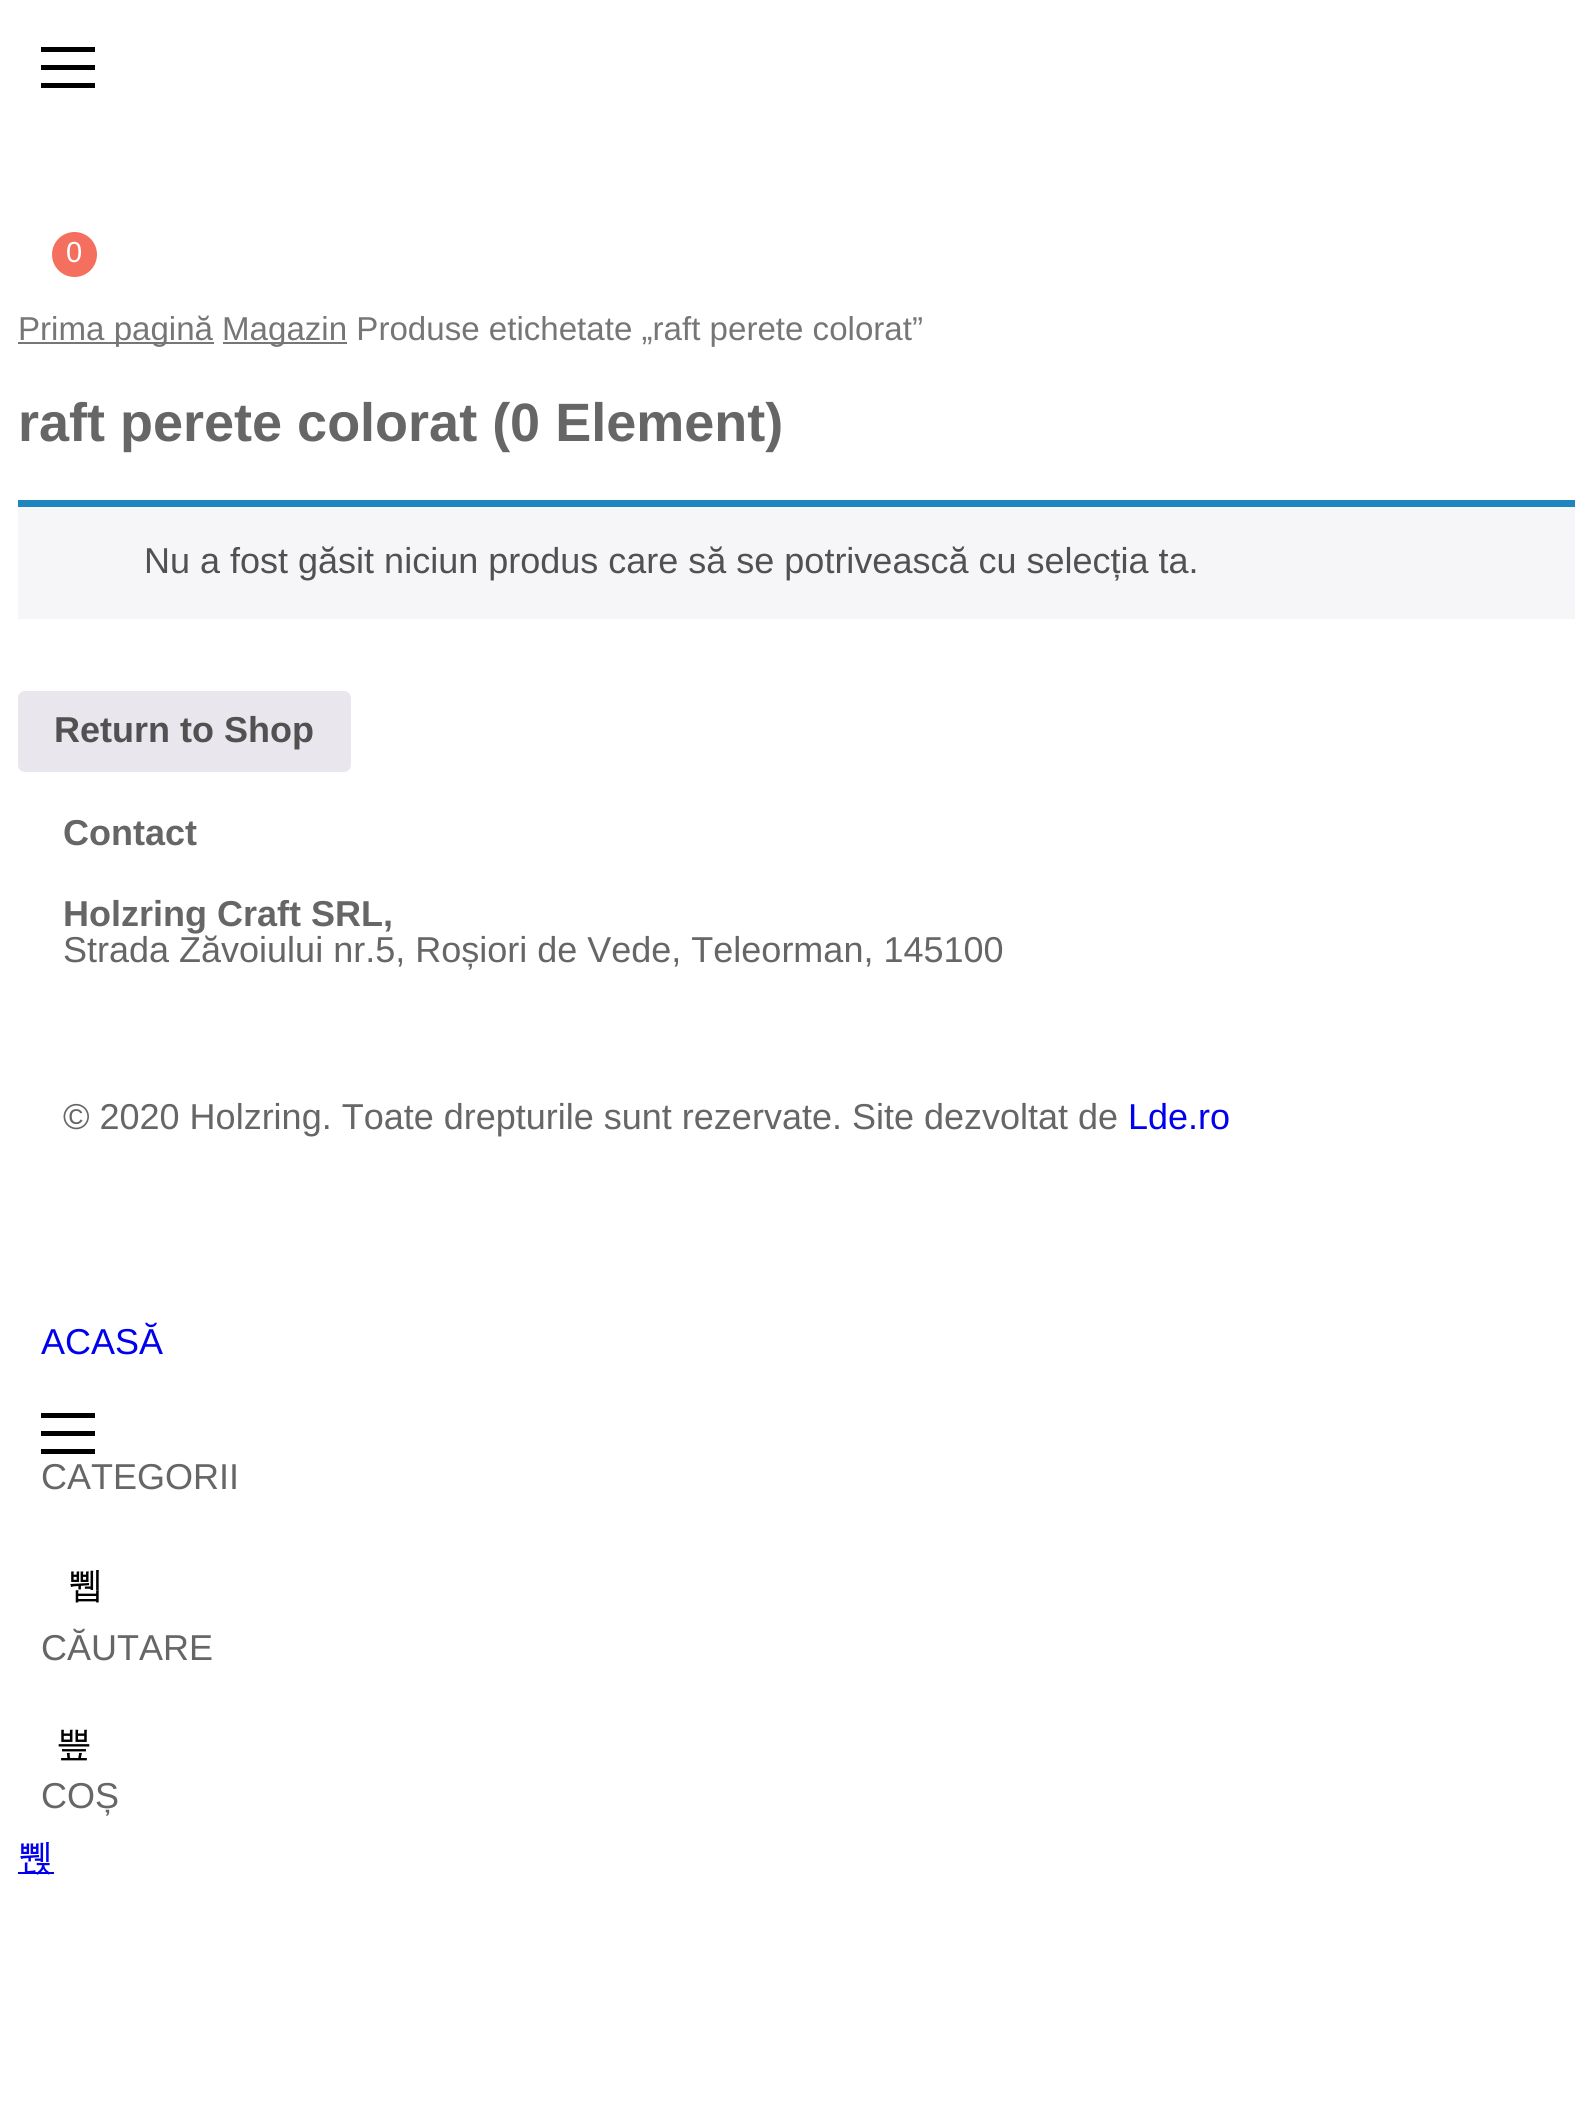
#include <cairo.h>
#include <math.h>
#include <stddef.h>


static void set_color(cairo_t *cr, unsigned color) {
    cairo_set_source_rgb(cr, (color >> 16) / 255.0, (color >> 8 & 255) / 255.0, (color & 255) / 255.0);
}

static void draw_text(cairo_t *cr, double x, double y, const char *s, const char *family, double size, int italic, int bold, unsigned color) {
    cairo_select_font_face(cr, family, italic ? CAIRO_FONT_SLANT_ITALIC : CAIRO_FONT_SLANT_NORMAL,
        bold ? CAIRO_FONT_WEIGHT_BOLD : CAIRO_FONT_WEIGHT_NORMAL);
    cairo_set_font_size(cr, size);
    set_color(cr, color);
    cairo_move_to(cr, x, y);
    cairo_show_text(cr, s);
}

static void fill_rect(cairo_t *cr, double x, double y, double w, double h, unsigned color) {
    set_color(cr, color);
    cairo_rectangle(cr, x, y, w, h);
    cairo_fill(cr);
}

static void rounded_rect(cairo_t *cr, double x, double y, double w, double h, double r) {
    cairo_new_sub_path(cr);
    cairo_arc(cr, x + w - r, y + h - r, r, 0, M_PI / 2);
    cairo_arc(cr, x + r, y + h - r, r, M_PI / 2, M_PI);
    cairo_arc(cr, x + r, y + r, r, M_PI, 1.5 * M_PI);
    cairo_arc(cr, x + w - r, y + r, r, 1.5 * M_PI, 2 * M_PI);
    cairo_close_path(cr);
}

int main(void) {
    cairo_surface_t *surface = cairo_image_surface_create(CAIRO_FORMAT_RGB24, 1591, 2105);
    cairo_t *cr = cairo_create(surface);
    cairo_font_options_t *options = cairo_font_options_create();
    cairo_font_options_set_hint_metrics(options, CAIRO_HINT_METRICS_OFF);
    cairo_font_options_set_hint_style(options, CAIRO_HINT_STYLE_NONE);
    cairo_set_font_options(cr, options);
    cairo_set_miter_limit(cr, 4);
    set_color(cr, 0xFFFFFF);
    cairo_paint(cr);
    fill_rect(cr, 41, 65, 54, 5, 0x000000);
    fill_rect(cr, 41, 47, 54, 5, 0x000000);
    fill_rect(cr, 41, 83, 54, 5, 0x000000);
    set_color(cr, 0xF56F5E);
    cairo_arc(cr, 74.5, 254.5, 22.5, 0, 2 * M_PI);
    cairo_fill(cr);
    draw_text(cr, 66, 262, "0", "Liberation Sans", 29, 0, 0, 0xFFFFFF);
    fill_rect(cr, 18, 342, 196, 2, 0x767676);
    draw_text(cr, 18, 340, "Prima pagină", "Liberation Sans", 33.1, 0, 0, 0x767676);
    fill_rect(cr, 223, 342, 124, 2, 0x767676);
    draw_text(cr, 222, 340, "Magazin Produse etichetate „raft perete colorat”", "Liberation Sans", 33.1, 0, 0, 0x767676);
    draw_text(cr, 18, 441, "raft perete colorat (0 Element)", "Liberation Sans", 54, 0, 1, 0x666666);
    fill_rect(cr, 18, 507, 1557, 112, 0xF6F5F8);
    fill_rect(cr, 18, 500, 1557, 7, 0x1E85BE);
    draw_text(cr, 144, 573, "Nu a fost găsit niciun produs care să se potrivească cu selecția ta.", "Liberation Sans", 36, 0, 0, 0x515151);
    set_color(cr, 0xE9E6ED);
    rounded_rect(cr, 18, 691, 333, 81, 7);
    cairo_fill(cr);
    draw_text(cr, 54, 742, "Return to Shop", "Liberation Sans", 36, 0, 1, 0x515151);
    draw_text(cr, 63, 845, "Contact", "Liberation Sans", 36, 0, 1, 0x666666);
    draw_text(cr, 63, 926, "Holzring Craft SRL,", "Liberation Sans", 36, 0, 1, 0x666666);
    draw_text(cr, 63, 962, "Strada Zăvoiului nr.5, Roșiori de Vede, Teleorman, 145100", "Liberation Sans", 36, 0, 0, 0x666666);
    draw_text(cr, 63, 1129, "© 2020 Holzring. Toate drepturile sunt rezervate. Site dezvoltat de", "Liberation Sans", 36, 0, 0, 0x666666);
    draw_text(cr, 1128, 1129, "Lde.ro", "Liberation Sans", 36, 0, 0, 0x0000EE);
    draw_text(cr, 41, 1354, "ACASĂ", "Liberation Sans", 36, 0, 0, 0x0000EE);
    fill_rect(cr, 41, 1431, 54, 5, 0x000000);
    fill_rect(cr, 41, 1413, 54, 5, 0x000000);
    fill_rect(cr, 41, 1449, 54, 5, 0x000000);
    draw_text(cr, 41, 1489, "CATEGORII", "Liberation Sans", 36, 0, 0, 0x666666);
    draw_text(cr, 68, 1597, "쀕", "WenQuanYi Zen Hei Medium", 36, 0, 0, 0x000000);
    draw_text(cr, 41, 1660, "CĂUTARE", "Liberation Sans", 36, 0, 0, 0x666666);
    draw_text(cr, 56, 1756, "쁲", "WenQuanYi Zen Hei Medium", 36, 0, 0, 0x000000);
    draw_text(cr, 41, 1808, "COȘ", "Liberation Sans", 36, 0, 0, 0x666666);
    fill_rect(cr, 18, 1872, 36, 2, 0x0000EE);
    draw_text(cr, 18, 1869, "쀉", "WenQuanYi Zen Hei Medium", 36, 0, 0, 0x0000EE);
    cairo_surface_write_to_png(surface, "output.png");
    cairo_font_options_destroy(options);
    cairo_destroy(cr);
    cairo_surface_destroy(surface);
    return 0;
}
